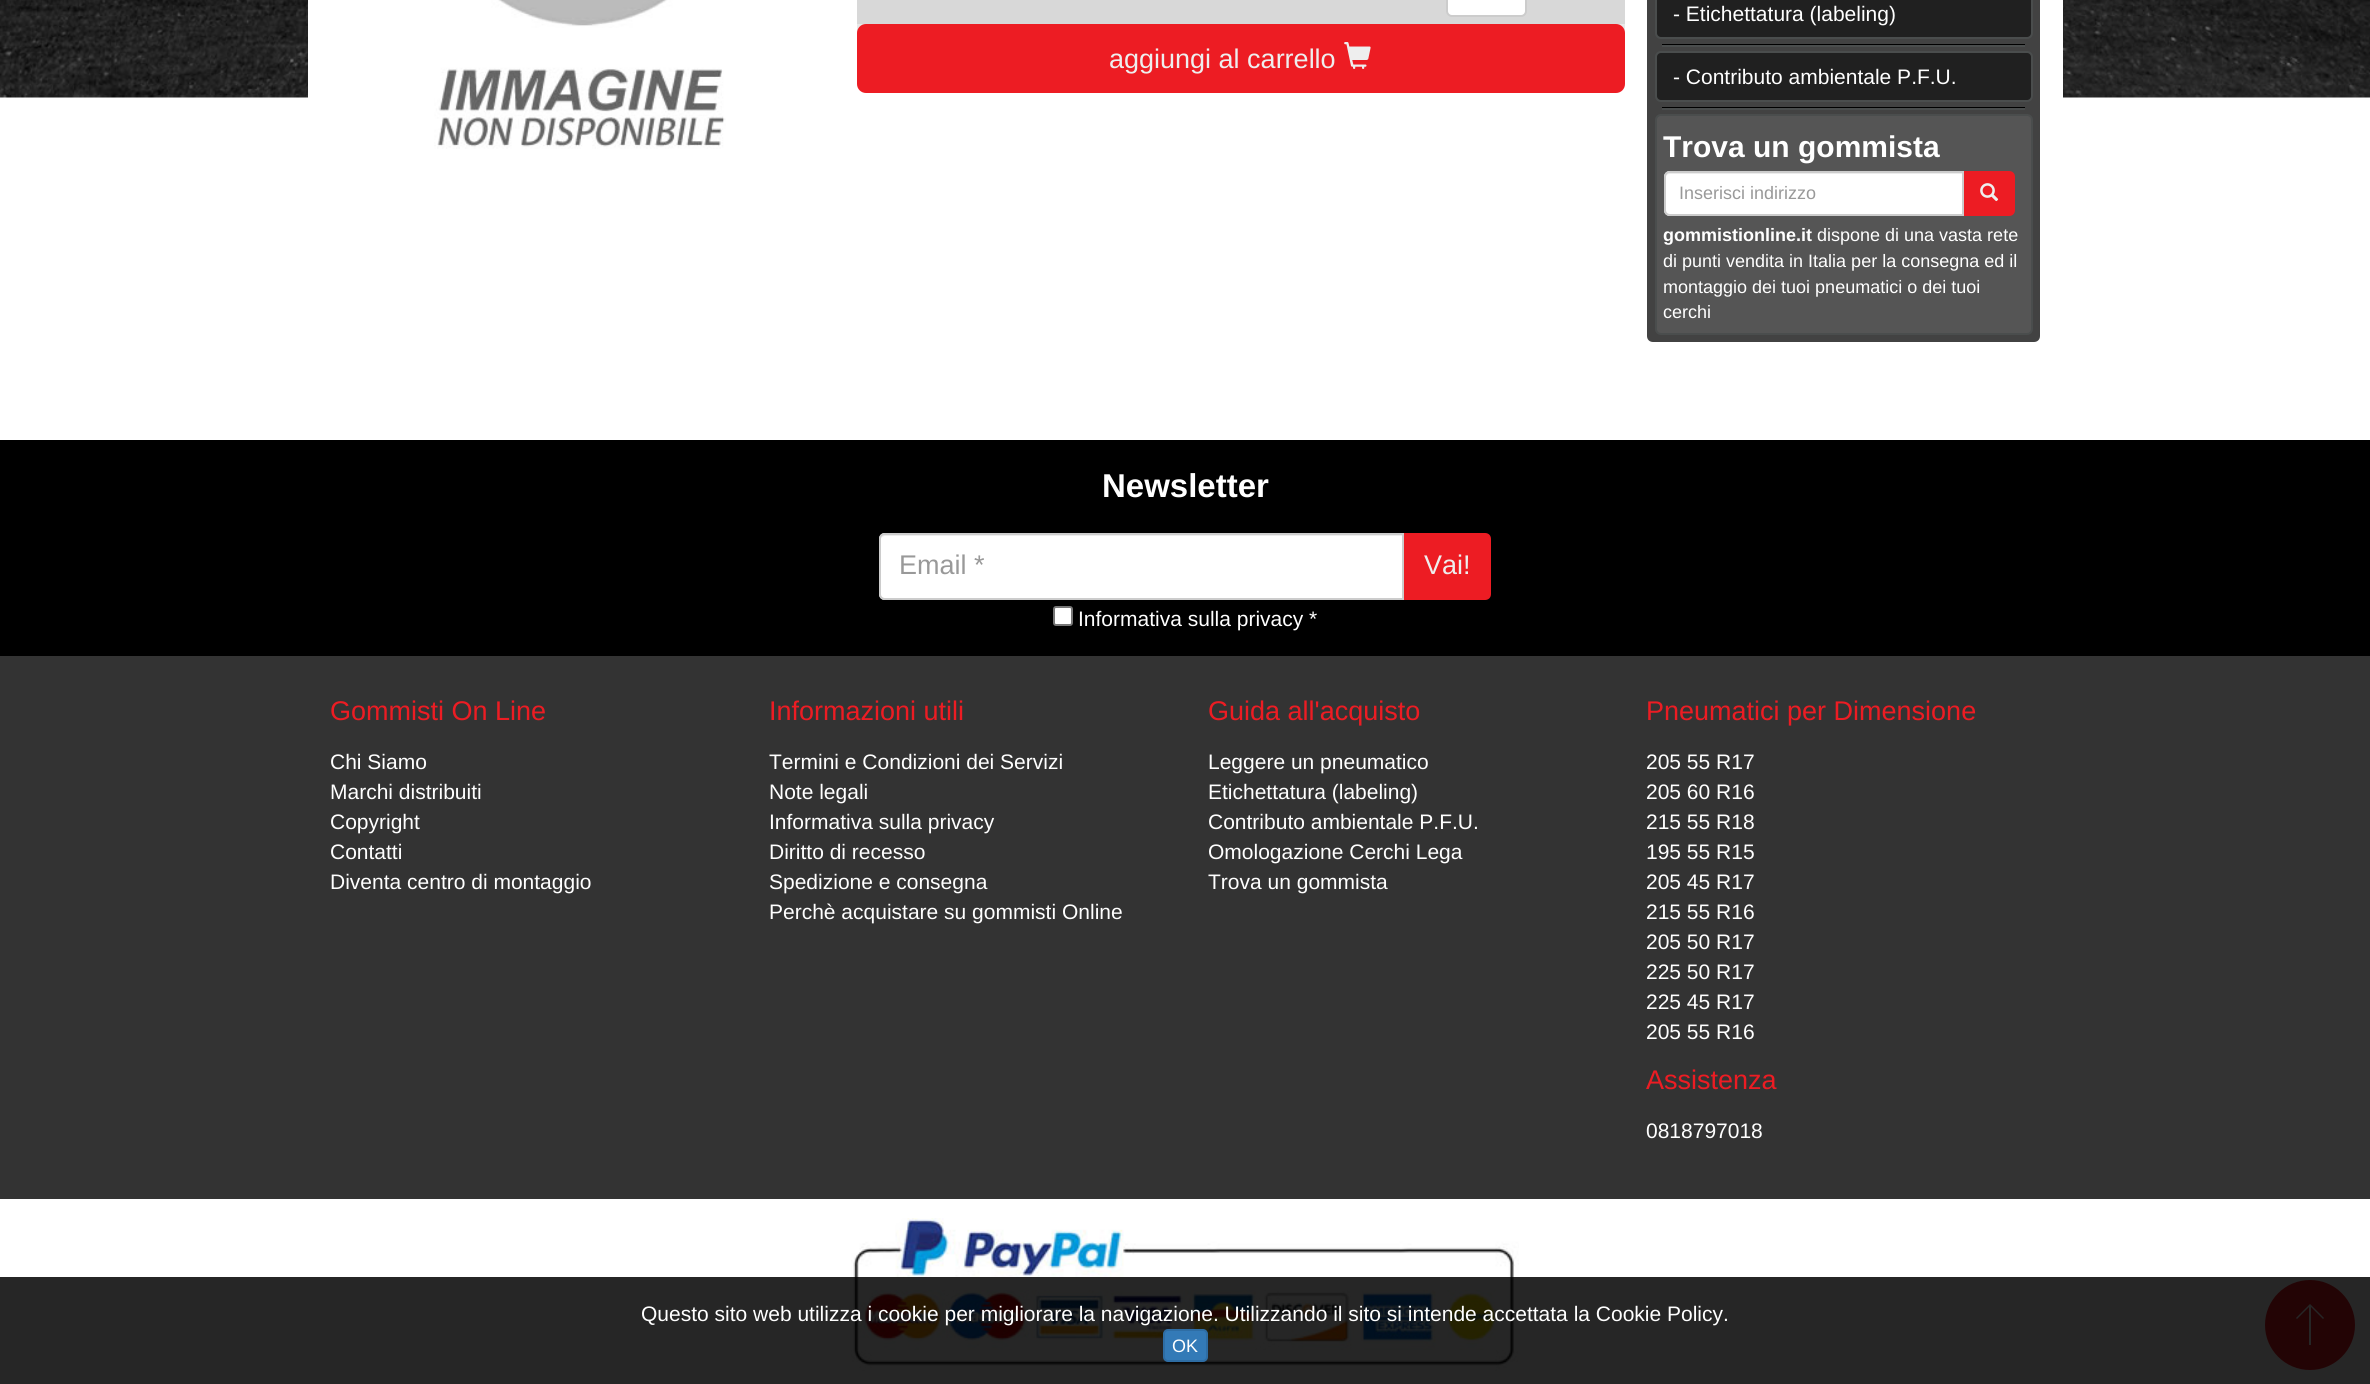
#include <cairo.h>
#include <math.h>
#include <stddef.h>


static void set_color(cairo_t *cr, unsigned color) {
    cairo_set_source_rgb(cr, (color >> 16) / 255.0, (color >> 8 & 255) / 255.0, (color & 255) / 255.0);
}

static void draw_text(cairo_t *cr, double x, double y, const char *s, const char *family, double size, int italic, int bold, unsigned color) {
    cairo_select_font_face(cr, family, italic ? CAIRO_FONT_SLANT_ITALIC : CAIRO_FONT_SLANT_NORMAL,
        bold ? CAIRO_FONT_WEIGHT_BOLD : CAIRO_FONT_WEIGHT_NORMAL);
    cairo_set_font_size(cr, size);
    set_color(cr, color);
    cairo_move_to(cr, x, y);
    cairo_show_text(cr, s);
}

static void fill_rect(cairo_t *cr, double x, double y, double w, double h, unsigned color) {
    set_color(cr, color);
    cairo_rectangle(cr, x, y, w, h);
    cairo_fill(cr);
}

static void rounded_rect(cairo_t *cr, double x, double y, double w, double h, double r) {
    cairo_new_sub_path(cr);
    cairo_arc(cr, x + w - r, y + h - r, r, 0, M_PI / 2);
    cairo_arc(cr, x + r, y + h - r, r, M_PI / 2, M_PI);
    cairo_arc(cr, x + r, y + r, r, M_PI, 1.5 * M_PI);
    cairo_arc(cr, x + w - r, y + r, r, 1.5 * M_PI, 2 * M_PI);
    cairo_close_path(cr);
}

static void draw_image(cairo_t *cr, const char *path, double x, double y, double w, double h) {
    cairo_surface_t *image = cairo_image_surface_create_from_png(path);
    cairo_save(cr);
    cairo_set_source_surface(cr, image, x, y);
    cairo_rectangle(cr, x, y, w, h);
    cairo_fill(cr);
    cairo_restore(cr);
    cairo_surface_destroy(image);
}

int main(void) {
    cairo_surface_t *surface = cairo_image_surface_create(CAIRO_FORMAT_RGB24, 2370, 1384);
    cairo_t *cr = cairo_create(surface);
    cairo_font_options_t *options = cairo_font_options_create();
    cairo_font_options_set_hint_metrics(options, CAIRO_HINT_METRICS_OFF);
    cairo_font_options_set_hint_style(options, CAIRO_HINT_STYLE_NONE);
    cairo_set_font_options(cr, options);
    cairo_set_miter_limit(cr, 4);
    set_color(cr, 0xFFFFFF);
    cairo_paint(cr);
    draw_image(cr, "assets/img1.png", 0, 0, 2370, 98);
    fill_rect(cr, 308, 0, 1755, 98, 0xFFFFFF);
    draw_image(cr, "assets/img2.png", 434, 0, 292, 149);
    set_color(cr, 0xE8E8E8);
    rounded_rect(cr, 857, -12, 768, 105, 12);
    cairo_fill(cr);
    fill_rect(cr, 857, 0, 768, 24, 0xD8D8D8);
    set_color(cr, 0xFFFFFF);
    rounded_rect(cr, 1447, -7, 79, 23, 5);
    cairo_fill_preserve(cr);
    set_color(cr, 0xCCCCCC);
    cairo_stroke(cr);
    set_color(cr, 0xED1C23);
    rounded_rect(cr, 858, 25, 766, 67, 8);
    cairo_fill_preserve(cr);
    cairo_stroke(cr);
    draw_text(cr, 1109, 68, "aggiungi al carrello", "Liberation Sans", 27, 0, 0, 0xEEEEEE);
    draw_image(cr, "assets/img3.png", 1344, 42, 27, 27);
    set_color(cr, 0x424242);
    cairo_new_path(cr);
    cairo_move_to(cr, 1647, -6);
    cairo_line_to(cr, 2040, -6);
    cairo_line_to(cr, 2040, 336);
    cairo_curve_to(cr, 2040, 339.5, 2037.5, 342, 2034, 342);
    cairo_line_to(cr, 1653, 342);
    cairo_curve_to(cr, 1649.5, 342, 1647, 339.5, 1647, 336);
    cairo_close_path(cr);
    cairo_fill(cr);
    set_color(cr, 0x202020);
    rounded_rect(cr, 1656, -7, 376, 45, 5);
    cairo_fill_preserve(cr);
    set_color(cr, 0x4A4D4D);
    cairo_stroke(cr);
    draw_text(cr, 1673, 21, "- Etichettatura (labeling)", "Liberation Sans", 21, 0, 0, 0xFFFFFF);
    fill_rect(cr, 1662, 44, 363, 1, 0x000000);
    fill_rect(cr, 1662, 45, 363, 2, 0x4A4D4D);
    set_color(cr, 0x202020);
    rounded_rect(cr, 1656, 52, 376, 49, 5);
    cairo_fill_preserve(cr);
    set_color(cr, 0x4A4D4D);
    cairo_stroke(cr);
    draw_text(cr, 1673, 84, "- Contributo ambientale P.F.U.", "Liberation Sans", 21, 0, 0, 0xFFFFFF);
    fill_rect(cr, 1662, 107, 363, 1, 0x000000);
    fill_rect(cr, 1662, 108, 363, 2, 0x4A4D4D);
    set_color(cr, 0x555555);
    rounded_rect(cr, 1656, 115, 376, 219, 5);
    cairo_fill_preserve(cr);
    set_color(cr, 0x4A4D4D);
    cairo_stroke(cr);
    draw_text(cr, 1663, 157, "Trova un gommista", "Liberation Sans", 30, 0, 1, 0xFFFFFF);
    cairo_new_path(cr);
    cairo_move_to(cr, 1670, 171);
    cairo_line_to(cr, 1964, 171);
    cairo_line_to(cr, 1964, 216);
    cairo_line_to(cr, 1670, 216);
    cairo_curve_to(cr, 1666.5, 216, 1664, 213.5, 1664, 210);
    cairo_line_to(cr, 1664, 177);
    cairo_curve_to(cr, 1664, 173.5, 1666.5, 171, 1670, 171);
    cairo_close_path(cr);
    cairo_fill(cr);
    set_color(cr, 0xECECEC);
    cairo_new_path(cr);
    cairo_move_to(cr, 1670, 174);
    cairo_line_to(cr, 1962, 174);
    cairo_line_to(cr, 1962, 173);
    cairo_line_to(cr, 1670, 173);
    cairo_curve_to(cr, 1667, 173, 1665, 175, 1665, 178);
    cairo_curve_to(cr, 1665, 176, 1667, 174, 1670, 174);
    cairo_close_path(cr);
    cairo_fill(cr);
    cairo_new_path(cr);
    cairo_move_to(cr, 1670, 172);
    cairo_line_to(cr, 1963, 172);
    cairo_line_to(cr, 1963, 215);
    cairo_line_to(cr, 1670, 215);
    cairo_curve_to(cr, 1667, 215, 1665, 213, 1665, 210);
    cairo_line_to(cr, 1665, 177);
    cairo_curve_to(cr, 1665, 174, 1667, 172, 1670, 172);
    cairo_close_path(cr);
    set_color(cr, 0xCCCCCC);
    cairo_stroke(cr);
    draw_text(cr, 1679, 199, "Inserisci indirizzo", "Liberation Sans", 18, 0, 0, 0x999999);
    set_color(cr, 0xED1C23);
    cairo_new_path(cr);
    cairo_move_to(cr, 1965, 172);
    cairo_line_to(cr, 2009, 172);
    cairo_curve_to(cr, 2012, 172, 2014, 174, 2014, 177);
    cairo_line_to(cr, 2014, 210);
    cairo_curve_to(cr, 2014, 213, 2012, 215, 2009, 215);
    cairo_line_to(cr, 1965, 215);
    cairo_close_path(cr);
    cairo_fill_preserve(cr);
    cairo_stroke(cr);
    draw_image(cr, "assets/img4.png", 1980, 183, 19, 19);
    draw_text(cr, 1663, 241, "gommistionline.it", "Liberation Sans", 18, 0, 1, 0xFFFFFF);
    draw_text(cr, 1817, 241, "dispone di una vasta rete", "Liberation Sans", 18, 0, 0, 0xFFFFFF);
    draw_text(cr, 1663, 267, "di punti vendita in Italia per la consegna ed il", "Liberation Sans", 18, 0, 0, 0xFFFFFF);
    draw_text(cr, 1663, 293, "montaggio dei tuoi pneumatici o dei tuoi", "Liberation Sans", 18, 0, 0, 0xFFFFFF);
    draw_text(cr, 1663, 318, "cerchi", "Liberation Sans", 18, 0, 0, 0xFFFFFF);
    fill_rect(cr, 0, 440, 2370, 216, 0x000000);
    draw_text(cr, 1102, 497, "Newsletter", "Liberation Sans", 33, 0, 1, 0xFFFFFF);
    cairo_new_path(cr);
    cairo_move_to(cr, 885, 533);
    cairo_line_to(cr, 1404, 533);
    cairo_line_to(cr, 1404, 600);
    cairo_line_to(cr, 885, 600);
    cairo_curve_to(cr, 881.5, 600, 879, 597.5, 879, 594);
    cairo_line_to(cr, 879, 539);
    cairo_curve_to(cr, 879, 535.5, 881.5, 533, 885, 533);
    cairo_close_path(cr);
    cairo_fill(cr);
    set_color(cr, 0xECECEC);
    cairo_new_path(cr);
    cairo_move_to(cr, 885, 536);
    cairo_line_to(cr, 1402, 536);
    cairo_line_to(cr, 1402, 599);
    cairo_line_to(cr, 1403, 599);
    cairo_line_to(cr, 1403, 534);
    cairo_line_to(cr, 886, 534);
    cairo_curve_to(cr, 884, 534, 882, 536, 881, 538);
    cairo_curve_to(cr, 882, 537, 884, 536, 885, 536);
    cairo_close_path(cr);
    cairo_fill(cr);
    cairo_new_path(cr);
    cairo_move_to(cr, 885, 534);
    cairo_line_to(cr, 1403, 534);
    cairo_line_to(cr, 1403, 599);
    cairo_line_to(cr, 885, 599);
    cairo_curve_to(cr, 882, 599, 880, 597, 880, 594);
    cairo_line_to(cr, 880, 539);
    cairo_curve_to(cr, 880, 536, 882, 534, 885, 534);
    cairo_close_path(cr);
    set_color(cr, 0xCCCCCC);
    cairo_stroke(cr);
    draw_text(cr, 899, 574, "Email *", "Liberation Sans", 27, 0, 0, 0x999999);
    set_color(cr, 0xED1C23);
    cairo_new_path(cr);
    cairo_move_to(cr, 1405, 534);
    cairo_line_to(cr, 1485, 534);
    cairo_curve_to(cr, 1488, 534, 1490, 536, 1490, 539);
    cairo_line_to(cr, 1490, 594);
    cairo_curve_to(cr, 1490, 597, 1488, 599, 1485, 599);
    cairo_line_to(cr, 1405, 599);
    cairo_close_path(cr);
    cairo_fill_preserve(cr);
    cairo_stroke(cr);
    draw_text(cr, 1424, 574, "Vai!", "Liberation Sans", 27, 0, 0, 0xEEEEEE);
    set_color(cr, 0xFFFFFF);
    rounded_rect(cr, 1054, 607, 18, 18, 2);
    cairo_fill_preserve(cr);
    set_color(cr, 0x767676);
    cairo_stroke(cr);
    draw_text(cr, 1078, 626, "Informativa sulla privacy *", "Liberation Sans", 21, 0, 0, 0xFFFFFF);
    fill_rect(cr, 0, 656, 2370, 543, 0x333333);
    draw_text(cr, 330, 720, "Gommisti On Line", "Liberation Sans", 27, 0, 0, 0xED1C23);
    draw_text(cr, 330, 769, "Chi Siamo", "Liberation Sans", 21, 0, 0, 0xFFFFFF);
    draw_text(cr, 330, 799, "Marchi distribuiti", "Liberation Sans", 21, 0, 0, 0xFFFFFF);
    draw_text(cr, 330, 829, "Copyright", "Liberation Sans", 21, 0, 0, 0xFFFFFF);
    draw_text(cr, 330, 859, "Contatti", "Liberation Sans", 21, 0, 0, 0xFFFFFF);
    draw_text(cr, 330, 889, "Diventa centro di montaggio", "Liberation Sans", 21, 0, 0, 0xFFFFFF);
    draw_text(cr, 769, 720, "Informazioni utili", "Liberation Sans", 27, 0, 0, 0xED1C23);
    draw_text(cr, 769, 769, "Termini e Condizioni dei Servizi", "Liberation Sans", 21, 0, 0, 0xFFFFFF);
    draw_text(cr, 769, 799, "Note legali", "Liberation Sans", 21, 0, 0, 0xFFFFFF);
    draw_text(cr, 769, 829, "Informativa sulla privacy", "Liberation Sans", 21, 0, 0, 0xFFFFFF);
    draw_text(cr, 769, 859, "Diritto di recesso", "Liberation Sans", 21, 0, 0, 0xFFFFFF);
    draw_text(cr, 769, 889, "Spedizione e consegna", "Liberation Sans", 21, 0, 0, 0xFFFFFF);
    draw_text(cr, 769, 919, "Perchè acquistare su gommisti Online", "Liberation Sans", 21, 0, 0, 0xFFFFFF);
    draw_text(cr, 1208, 720, "Guida all'acquisto", "Liberation Sans", 27, 0, 0, 0xED1C23);
    draw_text(cr, 1208, 769, "Leggere un pneumatico", "Liberation Sans", 21, 0, 0, 0xFFFFFF);
    draw_text(cr, 1208, 799, "Etichettatura (labeling)", "Liberation Sans", 21, 0, 0, 0xFFFFFF);
    draw_text(cr, 1208, 829, "Contributo ambientale P.F.U.", "Liberation Sans", 21, 0, 0, 0xFFFFFF);
    draw_text(cr, 1208, 859, "Omologazione Cerchi Lega", "Liberation Sans", 21, 0, 0, 0xFFFFFF);
    draw_text(cr, 1208, 889, "Trova un gommista", "Liberation Sans", 21, 0, 0, 0xFFFFFF);
    draw_text(cr, 1646, 720, "Pneumatici per Dimensione", "Liberation Sans", 27, 0, 0, 0xED1C23);
    draw_text(cr, 1646, 769, "205 55 R17", "Liberation Sans", 21, 0, 0, 0xFFFFFF);
    draw_text(cr, 1646, 799, "205 60 R16", "Liberation Sans", 21, 0, 0, 0xFFFFFF);
    draw_text(cr, 1646, 829, "215 55 R18", "Liberation Sans", 21, 0, 0, 0xFFFFFF);
    draw_text(cr, 1646, 859, "195 55 R15", "Liberation Sans", 21, 0, 0, 0xFFFFFF);
    draw_text(cr, 1646, 889, "205 45 R17", "Liberation Sans", 21, 0, 0, 0xFFFFFF);
    draw_text(cr, 1646, 919, "215 55 R16", "Liberation Sans", 21, 0, 0, 0xFFFFFF);
    draw_text(cr, 1646, 949, "205 50 R17", "Liberation Sans", 21, 0, 0, 0xFFFFFF);
    draw_text(cr, 1646, 979, "225 50 R17", "Liberation Sans", 21, 0, 0, 0xFFFFFF);
    draw_text(cr, 1646, 1009, "225 45 R17", "Liberation Sans", 21, 0, 0, 0xFFFFFF);
    draw_text(cr, 1646, 1039, "205 55 R16", "Liberation Sans", 21, 0, 0, 0xFFFFFF);
    draw_text(cr, 1646, 1089, "Assistenza", "Liberation Sans", 27, 0, 0, 0xED1C23);
    draw_text(cr, 1646, 1138, "0818797018", "Liberation Sans", 21, 0, 0, 0xFFFFFF);
    draw_image(cr, "assets/img5.png", 851, 1218, 668, 153);
    set_color(cr, 0xED1C23);
    cairo_arc(cr, 2310, 1325, 45, 0, 2 * M_PI);
    cairo_fill(cr);
    set_color(cr, 0xFFFFFF);
    cairo_new_path(cr);
    cairo_move_to(cr, 2324, 1318);
    cairo_line_to(cr, 2310, 1304);
    cairo_line_to(cr, 2296, 1318);
    cairo_line_to(cr, 2297, 1319);
    cairo_line_to(cr, 2309, 1307);
    cairo_line_to(cr, 2309, 1345);
    cairo_line_to(cr, 2311, 1345);
    cairo_line_to(cr, 2311, 1307);
    cairo_line_to(cr, 2323, 1319);
    cairo_close_path(cr);
    cairo_fill(cr);
    cairo_set_source_rgba(cr, 0, 0, 0, 0.85);
    cairo_rectangle(cr, 0, 1277, 2370, 107);
    cairo_fill(cr);
    draw_text(cr, 641, 1321, "Questo sito web utilizza i cookie per migliorare la navigazione. Utilizzando il sito si intende accettata la Cookie Policy.", "Liberation Sans", 21, 0, 0, 0xFFFFFF);
    set_color(cr, 0x337AB7);
    rounded_rect(cr, 1164, 1330, 43, 31, 4);
    cairo_fill_preserve(cr);
    set_color(cr, 0x2E6DA4);
    cairo_stroke(cr);
    draw_text(cr, 1172, 1352, "OK", "Liberation Sans", 18, 0, 0, 0xFFFFFF);
    cairo_surface_write_to_png(surface, "output.png");
    cairo_font_options_destroy(options);
    cairo_destroy(cr);
    cairo_surface_destroy(surface);
    return 0;
}
